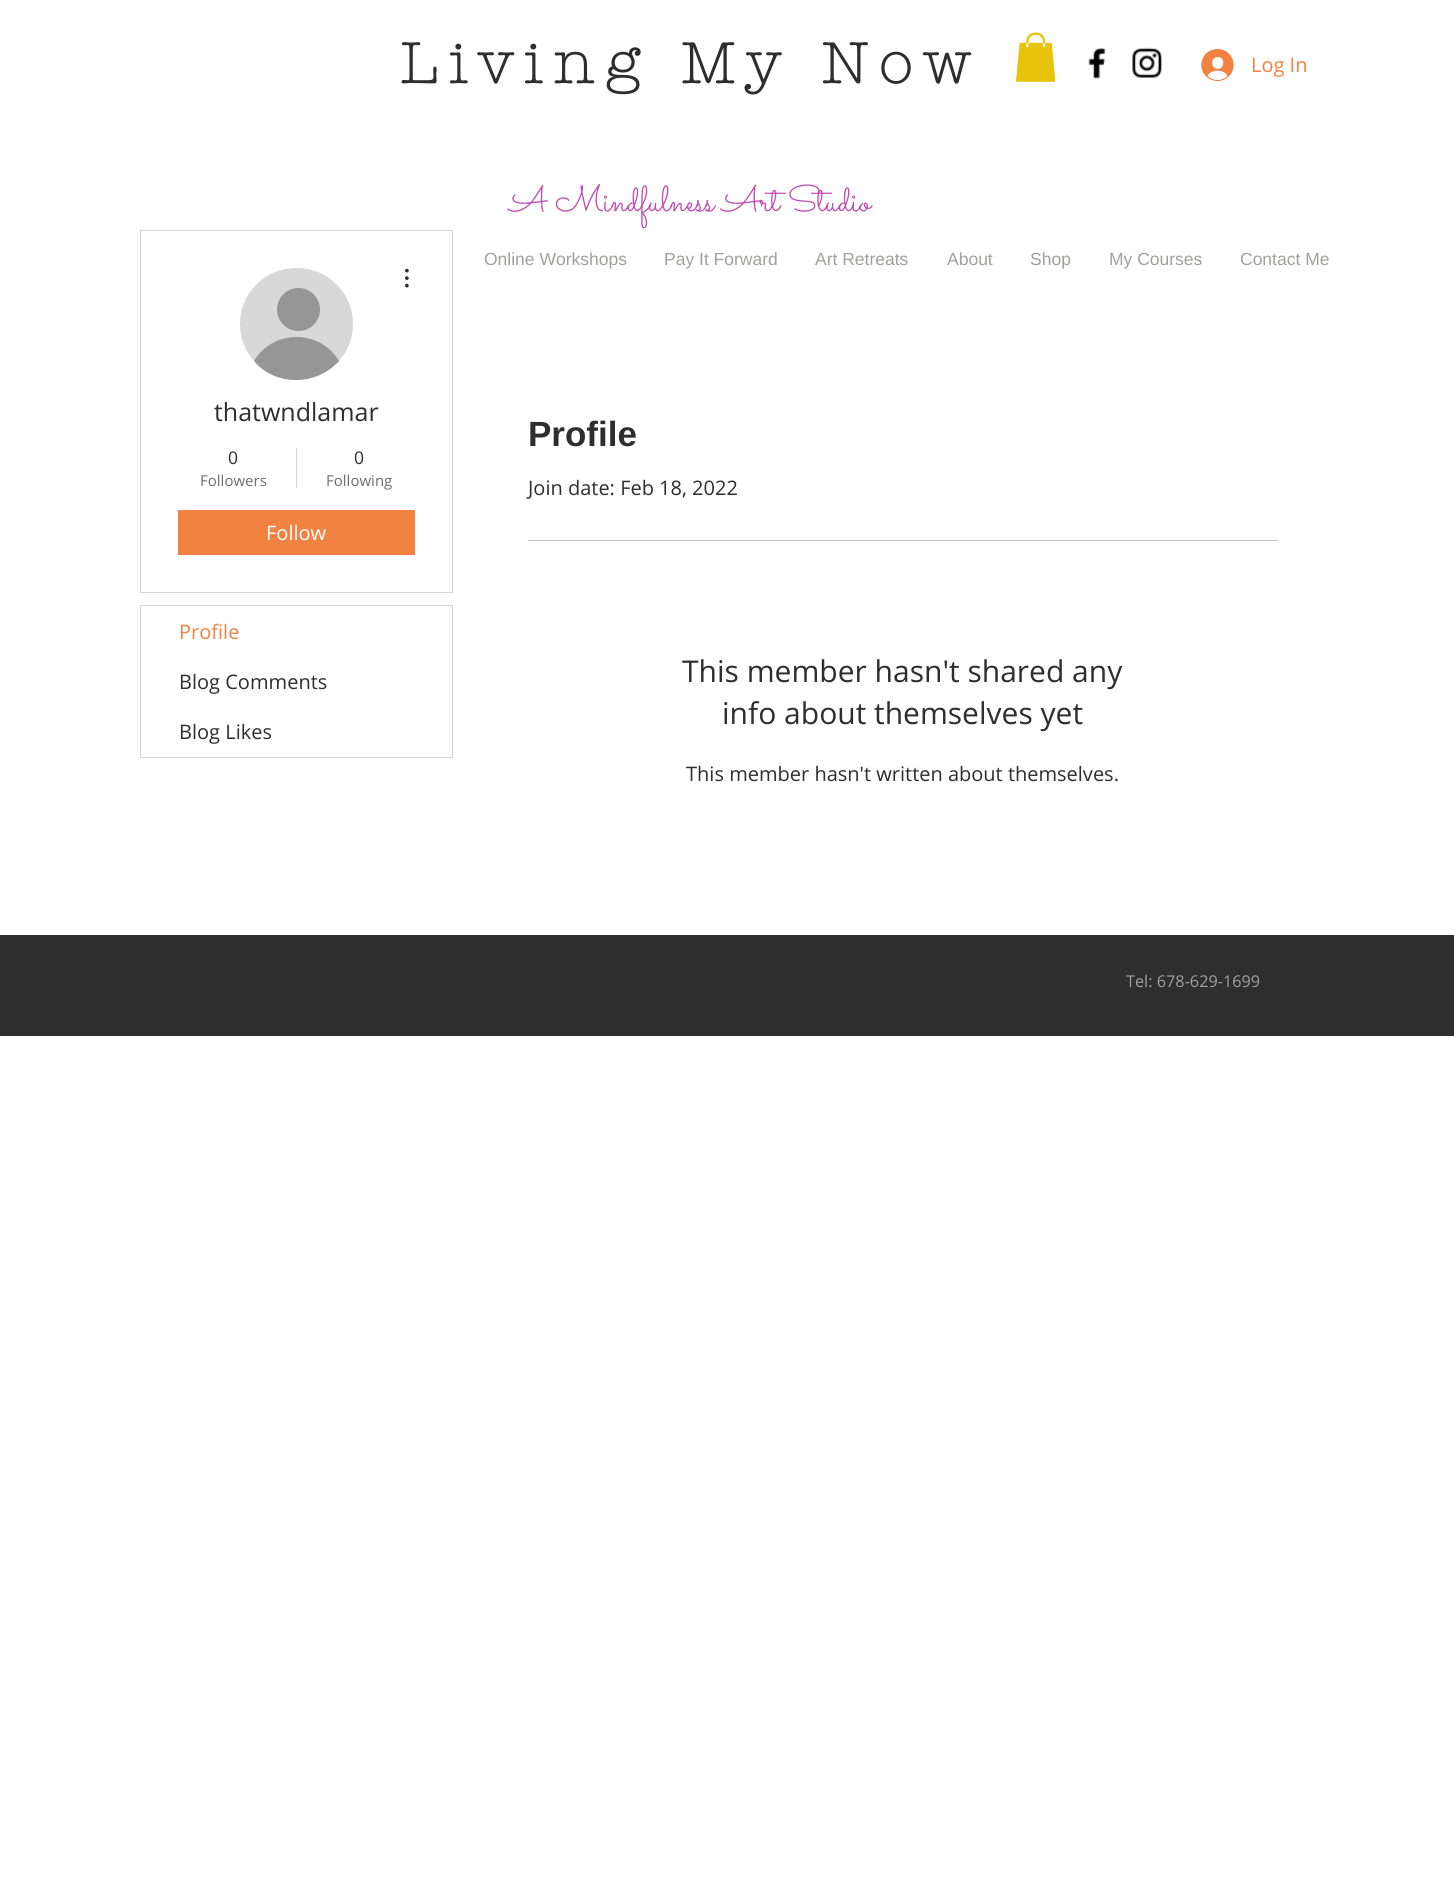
#include <cairo.h>
#include <math.h>
#include <stddef.h>


static void set_color(cairo_t *cr, unsigned color) {
    cairo_set_source_rgb(cr, (color >> 16) / 255.0, (color >> 8 & 255) / 255.0, (color & 255) / 255.0);
}

static void draw_text(cairo_t *cr, double x, double y, const char *s, const char *family, double size, int italic, int bold, unsigned color) {
    cairo_select_font_face(cr, family, italic ? CAIRO_FONT_SLANT_ITALIC : CAIRO_FONT_SLANT_NORMAL,
        bold ? CAIRO_FONT_WEIGHT_BOLD : CAIRO_FONT_WEIGHT_NORMAL);
    cairo_set_font_size(cr, size);
    set_color(cr, color);
    cairo_move_to(cr, x, y);
    cairo_show_text(cr, s);
}

static void draw_spaced(cairo_t *cr, double x, double y, const char *s, double letter, double word) {
    cairo_move_to(cr, x, y);
    while (*s) {
        char ch[5] = {0};
        int n = 0;
        do ch[n++] = *s++; while ((*s & 0xC0) == 0x80);
        cairo_show_text(cr, ch);
        cairo_rel_move_to(cr, letter + word * (*ch == ' '), 0);
    }
}

static void fill_rect(cairo_t *cr, double x, double y, double w, double h, unsigned color) {
    set_color(cr, color);
    cairo_rectangle(cr, x, y, w, h);
    cairo_fill(cr);
}

static void rounded_rect(cairo_t *cr, double x, double y, double w, double h, double r) {
    cairo_new_sub_path(cr);
    cairo_arc(cr, x + w - r, y + h - r, r, 0, M_PI / 2);
    cairo_arc(cr, x + r, y + h - r, r, M_PI / 2, M_PI);
    cairo_arc(cr, x + r, y + r, r, M_PI, 1.5 * M_PI);
    cairo_arc(cr, x + w - r, y + r, r, 1.5 * M_PI, 2 * M_PI);
    cairo_close_path(cr);
}

static void draw_image(cairo_t *cr, const char *path, double x, double y, double w, double h) {
    cairo_surface_t *image = cairo_image_surface_create_from_png(path);
    cairo_save(cr);
    cairo_set_source_surface(cr, image, x, y);
    cairo_rectangle(cr, x, y, w, h);
    cairo_fill(cr);
    cairo_restore(cr);
    cairo_surface_destroy(image);
}

int main(void) {
    cairo_surface_t *surface = cairo_image_surface_create(CAIRO_FORMAT_RGB24, 1454, 1894);
    cairo_t *cr = cairo_create(surface);
    cairo_font_options_t *options = cairo_font_options_create();
    cairo_font_options_set_hint_metrics(options, CAIRO_HINT_METRICS_OFF);
    cairo_font_options_set_hint_style(options, CAIRO_HINT_STYLE_NONE);
    cairo_set_font_options(cr, options);
    cairo_set_miter_limit(cr, 4);
    set_color(cr, 0xFFFFFF);
    cairo_paint(cr);
    cairo_select_font_face(cr, "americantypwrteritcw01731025", CAIRO_FONT_SLANT_NORMAL, CAIRO_FONT_WEIGHT_BOLD);
    cairo_set_font_size(cr, 57.5);
    set_color(cr, 0x2F2E2E);
    draw_spaced(cr, 400, 83, "Living My Now", 11.5, 0);
    draw_image(cr, "assets/img1.png", 1016, 32, 40, 50);
    draw_image(cr, "assets/img2.png", 1088, 47, 18, 32);
    draw_image(cr, "assets/img3.png", 1131, 47, 31, 32);
    draw_image(cr, "assets/img4.png", 1201, 49, 33, 32);
    draw_text(cr, 1251, 72, "Log In", "Open Sans", 20, 0, 0, 0xF28241);
    draw_text(cr, 509, 211, "A Mindfulness Art Studio", "Sacramento", 36.25, 0, 0, 0xBF4DB1);
    draw_text(cr, 484, 265, "Online Workshops", "Liberation Sans", 17.5, 0, 0, 0xA0A09F);
    draw_text(cr, 664, 265, "Pay It Forward", "Liberation Sans", 17.5, 0, 0, 0xA0A09F);
    draw_text(cr, 815, 265, "Art Retreats", "Liberation Sans", 17.5, 0, 0, 0xA0A09F);
    draw_text(cr, 947, 265, "About", "Liberation Sans", 17.5, 0, 0, 0xA0A09F);
    draw_text(cr, 1030, 265, "Shop", "Liberation Sans", 17.5, 0, 0, 0xA0A09F);
    draw_text(cr, 1109, 265, "My Courses", "Liberation Sans", 17.5, 0, 0, 0xA0A09F);
    draw_text(cr, 1240, 265, "Contact Me", "Liberation Sans", 17.5, 0, 0, 0xA0A09F);
    cairo_rectangle(cr, 140.5, 230.5, 312, 362);
    set_color(cr, 0xD5D5D5);
    cairo_set_line_width(cr, 1);
    cairo_stroke(cr);
    set_color(cr, 0xD8D8D8);
    rounded_rect(cr, 240, 268, 113, 112, 56);
    cairo_fill(cr);
    set_color(cr, 0x969696);
    cairo_arc(cr, 298.5, 309.5, 21.5, 0, 2 * M_PI);
    cairo_fill(cr);
    cairo_new_path(cr);
    cairo_move_to(cr, 296, 380);
    cairo_curve_to(cr, 312, 380, 328, 373, 339, 361);
    cairo_curve_to(cr, 320, 329, 273, 329, 254, 361);
    cairo_curve_to(cr, 264, 373, 279, 380, 296, 380);
    cairo_close_path(cr);
    cairo_fill(cr);
    draw_image(cr, "assets/img5.png", 405, 268, 4, 20);
    draw_text(cr, 214, 421, "thatwndlamar", "Open Sans", 25, 0, 0, 0x2F2E2E);
    draw_text(cr, 228, 464, "0", "Open Sans", 17.5, 0, 0, 0x2F2E2E);
    draw_text(cr, 200, 486, "Followers", "Open Sans", 15, 0, 0, 0x6D6D6D);
    fill_rect(cr, 296, 448, 1, 40, 0xD5D5D5);
    draw_text(cr, 354, 464, "0", "Open Sans", 17.5, 0, 0, 0x2F2E2E);
    draw_text(cr, 326, 486, "Following", "Open Sans", 15, 0, 0, 0x6D6D6D);
    fill_rect(cr, 178, 510, 237, 45, 0xF28241);
    draw_text(cr, 266, 540, "Follow", "Open Sans", 20, 0, 0, 0xFFFFFF);
    cairo_rectangle(cr, 140.5, 605.5, 312, 152);
    set_color(cr, 0xD5D5D5);
    cairo_stroke(cr);
    draw_text(cr, 179, 639, "Profile", "Open Sans", 20, 0, 0, 0xF28241);
    draw_text(cr, 179, 689, "Blog Comments", "Open Sans", 20, 0, 0, 0x2F2E2E);
    draw_text(cr, 179, 739, "Blog Likes", "Open Sans", 20, 0, 0, 0x2F2E2E);
    draw_text(cr, 528, 446, "Profile", "Liberation Sans", 35, 0, 1, 0x2F2E2E);
    draw_text(cr, 528, 495, "Join date: Feb 18, 2022", "Open Sans", 20, 0, 0, 0x2F2E2E);
    fill_rect(cr, 528, 540, 750, 1, 0xC1C0C0);
    draw_text(cr, 682, 682, "This member hasn't shared any", "Open Sans", 30, 0, 0, 0x2F2E2E);
    draw_text(cr, 722, 724, "info about themselves yet", "Open Sans", 30, 0, 0, 0x2F2E2E);
    draw_text(cr, 686, 781, "This member hasn't written about themselves.", "Open Sans", 20, 0, 0, 0x2F2E2E);
    fill_rect(cr, 0, 935, 1454, 101, 0x2F2E2E);
    draw_text(cr, 1126, 987, "Tel: 678-629-1699", "Open Sans", 16.25, 0, 0, 0xA0A09F);
    cairo_surface_write_to_png(surface, "output.png");
    cairo_font_options_destroy(options);
    cairo_destroy(cr);
    cairo_surface_destroy(surface);
    return 0;
}
